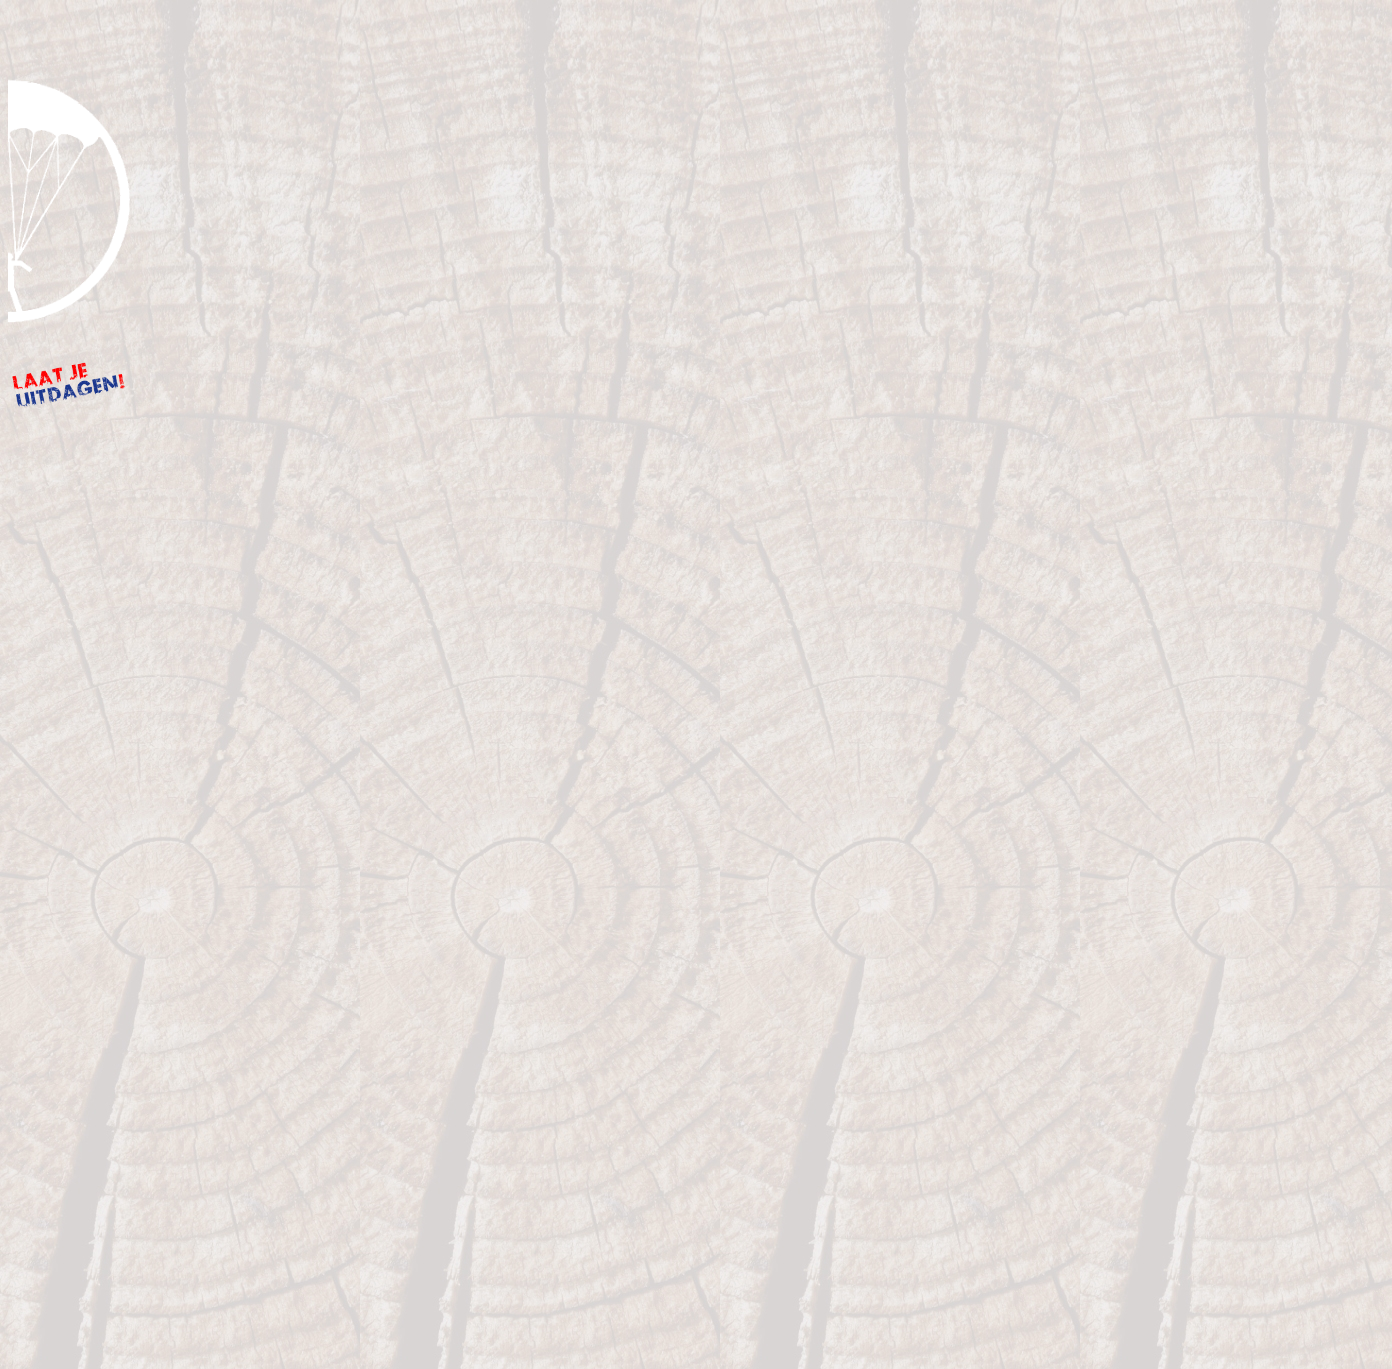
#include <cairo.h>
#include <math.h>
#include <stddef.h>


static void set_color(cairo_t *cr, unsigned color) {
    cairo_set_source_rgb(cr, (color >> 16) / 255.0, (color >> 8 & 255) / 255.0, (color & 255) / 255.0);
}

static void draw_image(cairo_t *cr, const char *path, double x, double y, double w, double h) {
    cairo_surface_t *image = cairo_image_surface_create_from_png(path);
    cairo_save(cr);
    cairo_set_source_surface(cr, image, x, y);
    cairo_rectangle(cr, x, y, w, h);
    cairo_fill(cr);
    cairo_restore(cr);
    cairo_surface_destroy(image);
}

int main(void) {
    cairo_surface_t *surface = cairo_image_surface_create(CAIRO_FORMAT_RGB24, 1392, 1369);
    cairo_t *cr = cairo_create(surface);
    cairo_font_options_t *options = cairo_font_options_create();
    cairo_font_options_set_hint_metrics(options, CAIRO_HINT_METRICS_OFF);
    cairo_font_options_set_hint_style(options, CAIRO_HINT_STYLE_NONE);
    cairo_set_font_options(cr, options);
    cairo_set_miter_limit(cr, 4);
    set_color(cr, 0xFFFFFF);
    cairo_paint(cr);
    draw_image(cr, "assets/img1.png", 0, 0, 1392, 1369);
    draw_image(cr, "assets/img2.png", 8, 79, 122, 244);
    draw_image(cr, "assets/img3.png", 12, 362, 113, 46);
    cairo_surface_write_to_png(surface, "output.png");
    cairo_font_options_destroy(options);
    cairo_destroy(cr);
    cairo_surface_destroy(surface);
    return 0;
}
